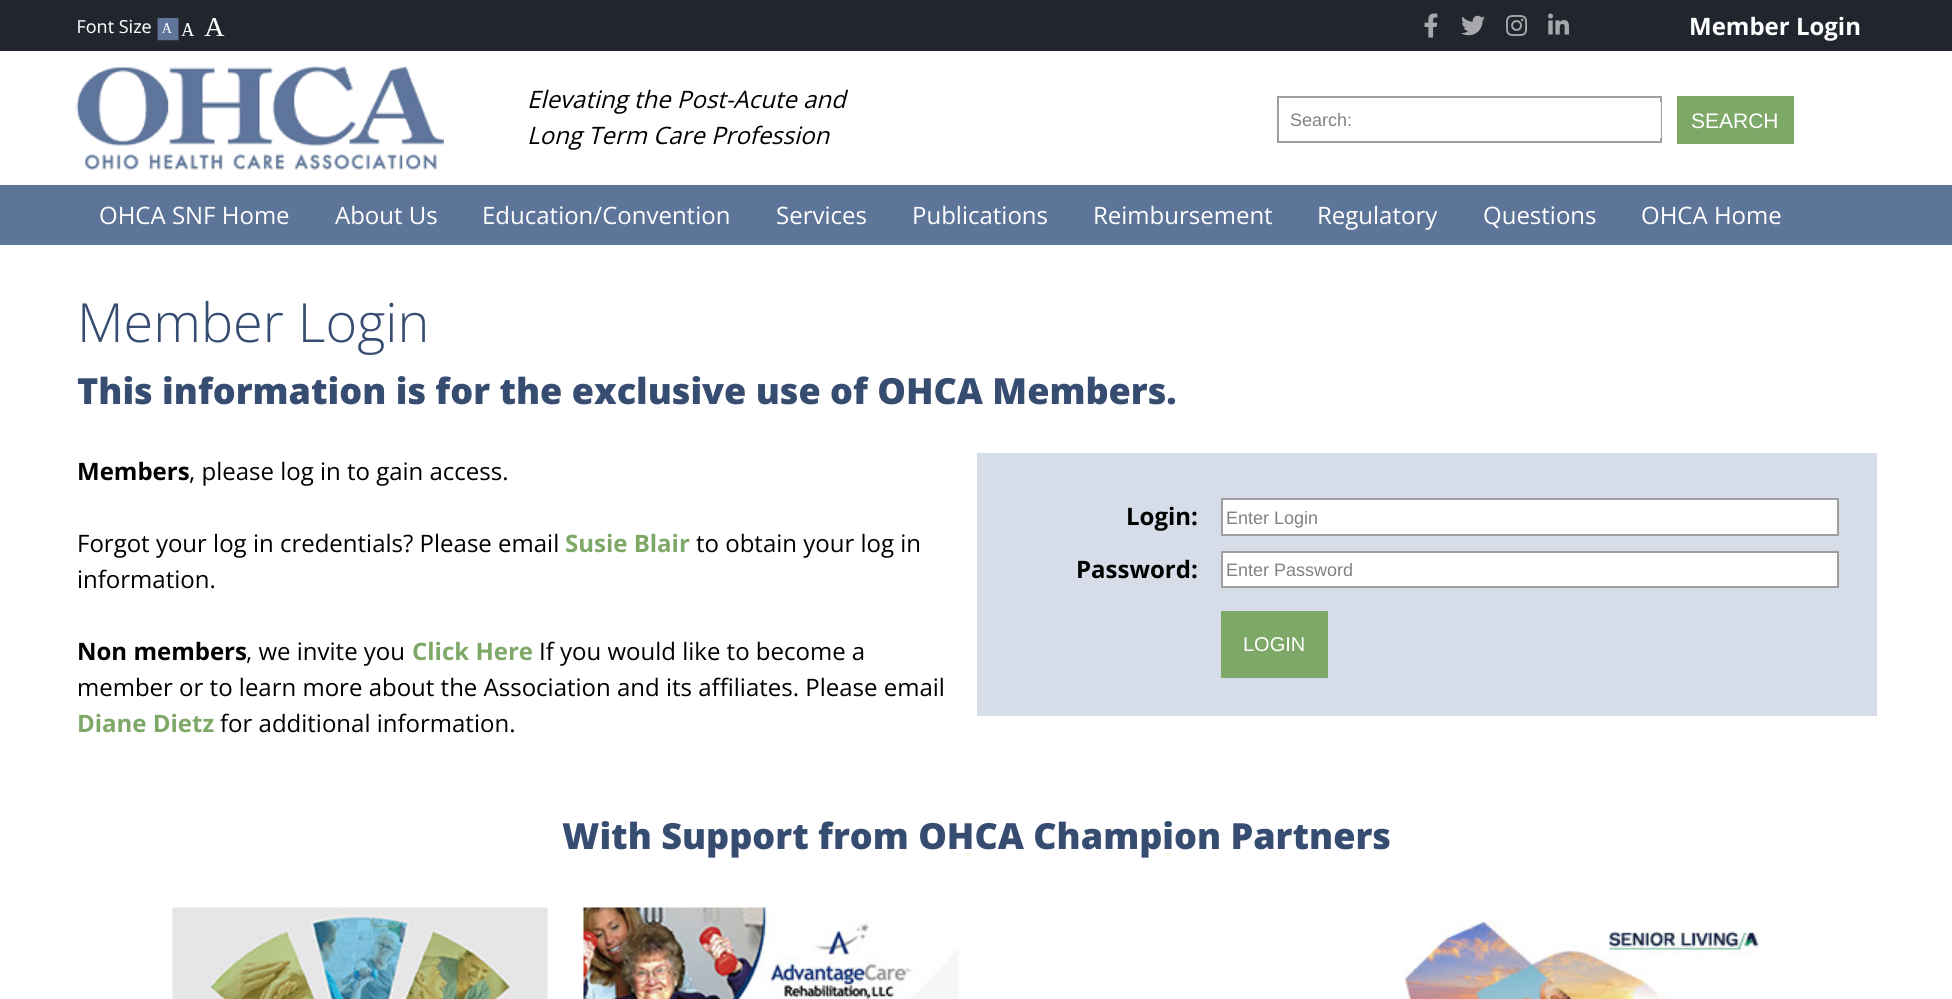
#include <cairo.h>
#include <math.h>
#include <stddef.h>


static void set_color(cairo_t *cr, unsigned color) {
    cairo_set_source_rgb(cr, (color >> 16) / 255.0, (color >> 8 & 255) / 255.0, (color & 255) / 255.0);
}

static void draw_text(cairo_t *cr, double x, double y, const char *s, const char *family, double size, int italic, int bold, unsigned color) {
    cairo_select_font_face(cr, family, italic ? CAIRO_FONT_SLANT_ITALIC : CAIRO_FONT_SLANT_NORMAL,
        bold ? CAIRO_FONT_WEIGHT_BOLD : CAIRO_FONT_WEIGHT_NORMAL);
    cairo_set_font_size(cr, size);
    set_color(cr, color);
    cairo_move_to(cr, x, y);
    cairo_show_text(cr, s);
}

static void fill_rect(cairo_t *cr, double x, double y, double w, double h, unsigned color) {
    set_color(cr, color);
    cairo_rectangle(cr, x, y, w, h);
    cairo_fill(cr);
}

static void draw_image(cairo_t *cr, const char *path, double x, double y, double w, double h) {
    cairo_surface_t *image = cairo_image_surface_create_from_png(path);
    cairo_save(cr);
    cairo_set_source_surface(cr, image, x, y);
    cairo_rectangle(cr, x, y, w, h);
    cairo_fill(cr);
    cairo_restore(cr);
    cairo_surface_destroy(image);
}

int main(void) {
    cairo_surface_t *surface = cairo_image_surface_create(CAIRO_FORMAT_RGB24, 1952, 999);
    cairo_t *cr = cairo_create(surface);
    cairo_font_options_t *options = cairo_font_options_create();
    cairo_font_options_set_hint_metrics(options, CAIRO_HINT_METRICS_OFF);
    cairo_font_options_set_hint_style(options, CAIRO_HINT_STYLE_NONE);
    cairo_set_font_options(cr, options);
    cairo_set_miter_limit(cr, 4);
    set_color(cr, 0x5E759A);
    cairo_paint(cr);
    fill_rect(cr, 0, 0, 1952, 51, 0x21262E);
    draw_image(cr, "assets/img1.png", 78, 18, 147, 23);
    draw_image(cr, "assets/img2.png", 1424, 13, 14, 25);
    draw_image(cr, "assets/img3.png", 1461, 15, 24, 21);
    draw_image(cr, "assets/img4.png", 1506, 15, 22, 21);
    draw_image(cr, "assets/img5.png", 1548, 13, 21, 22);
    draw_text(cr, 1689, 35, "Member Login", "Open Sans", 24, 0, 1, 0xFFFFFF);
    fill_rect(cr, 0, 51, 1952, 134, 0xFFFFFF);
    draw_image(cr, "assets/img6.png", 76, 66, 368, 104);
    draw_text(cr, 527, 108, "Elevating the Post-Acute and", "Open Sans", 24, 1, 0, 0x000000);
    draw_text(cr, 527, 144, "Long Term Care Profession", "Open Sans", 24, 1, 0, 0x000000);
    cairo_rectangle(cr, 1278, 97, 383, 45);
    set_color(cr, 0x9F9F9F);
    cairo_stroke(cr);
    fill_rect(cr, 1660, 102, 1, 36, 0xFFFFFF);
    draw_text(cr, 1290, 126, "Search:", "Liberation Sans", 18, 0, 0, 0x818181);
    fill_rect(cr, 1677, 96, 117, 48, 0x7EA867);
    draw_text(cr, 1691, 128, "SEARCH", "Liberation Sans", 21, 0, 0, 0xFFFFFF);
    draw_text(cr, 99, 224, "OHCA SNF Home", "Open Sans", 24, 0, 0, 0xFFFFFF);
    draw_text(cr, 335, 224, "About Us", "Open Sans", 24, 0, 0, 0xFFFFFF);
    draw_text(cr, 482, 224, "Education/Convention", "Open Sans", 24, 0, 0, 0xFFFFFF);
    draw_text(cr, 776, 224, "Services", "Open Sans", 24, 0, 0, 0xFFFFFF);
    draw_text(cr, 912, 224, "Publications", "Open Sans", 24, 0, 0, 0xFFFFFF);
    draw_text(cr, 1093, 224, "Reimbursement", "Open Sans", 24, 0, 0, 0xFFFFFF);
    draw_text(cr, 1317, 224, "Regulatory", "Open Sans", 24, 0, 0, 0xFFFFFF);
    draw_text(cr, 1483, 224, "Questions", "Open Sans", 24, 0, 0, 0xFFFFFF);
    draw_text(cr, 1641, 224, "OHCA Home", "Open Sans", 24, 0, 0, 0xFFFFFF);
    fill_rect(cr, 0, 245, 1952, 754, 0xFFFFFF);
    draw_text(cr, 77, 342, "Member Login", "Open Sans Light", 54, 0, 0, 0x364C71);
    draw_text(cr, 77, 404, "This information is for the exclusive use of OHCA Members.", "Open Sans ExtraBold", 36, 0, 0, 0x364C71);
    draw_text(cr, 77, 480, "Members", "Open Sans", 24, 0, 1, 0x000000);
    draw_text(cr, 189, 480, ", please log in to gain access.", "Open Sans", 24, 0, 0, 0x000000);
    draw_text(cr, 77, 552, "Forgot your log in credentials? Please email", "Open Sans", 24, 0, 0, 0x000000);
    draw_text(cr, 565, 552, "Susie Blair", "Open Sans", 24, 0, 1, 0x7EA867);
    draw_text(cr, 696, 552, "to obtain your log in", "Open Sans", 24, 0, 0, 0x000000);
    draw_text(cr, 77, 588, "information.", "Open Sans", 24, 0, 0, 0x000000);
    draw_text(cr, 77, 660, "Non members", "Open Sans", 24, 0, 1, 0x000000);
    draw_text(cr, 246, 660, ", we invite you", "Open Sans", 24, 0, 0, 0x000000);
    draw_text(cr, 412, 660, "Click Here", "Open Sans", 24, 0, 1, 0x7EA867);
    draw_text(cr, 539, 660, "If you would like to become a", "Open Sans", 24, 0, 0, 0x000000);
    draw_text(cr, 77, 696, "member or to learn more about the Association and its affiliates. Please email", "Open Sans", 24, 0, 0, 0x000000);
    draw_text(cr, 77, 732, "Diane Dietz", "Open Sans", 24, 0, 1, 0x7EA867);
    draw_text(cr, 220, 732, "for additional information.", "Open Sans", 24, 0, 0, 0x000000);
    fill_rect(cr, 977, 453, 900, 263, 0xD6DDE9);
    draw_text(cr, 1126, 525, "Login:", "Open Sans", 24, 0, 1, 0x000000);
    set_color(cr, 0xFFFFFF);
    cairo_rectangle(cr, 1222, 499, 616, 36);
    cairo_fill_preserve(cr);
    set_color(cr, 0x9F9F9F);
    cairo_stroke(cr);
    draw_text(cr, 1226, 524, "Enter Login", "Liberation Sans", 18, 0, 0, 0x818181);
    draw_text(cr, 1076, 578, "Password:", "Open Sans", 24, 0, 1, 0x000000);
    set_color(cr, 0xFFFFFF);
    cairo_rectangle(cr, 1222, 552, 616, 35);
    cairo_fill_preserve(cr);
    set_color(cr, 0x9F9F9F);
    cairo_stroke(cr);
    draw_text(cr, 1226, 576, "Enter Password", "Liberation Sans", 18, 0, 0, 0x818181);
    fill_rect(cr, 1221, 611, 107, 67, 0x7EA867);
    draw_text(cr, 1243, 651, "LOGIN", "Liberation Sans", 20, 0, 0, 0xFFFFFF);
    draw_text(cr, 562, 849, "With Support from OHCA Champion Partners", "Open Sans ExtraBold", 36, 0, 0, 0x364C71);
    draw_image(cr, "assets/img7.png", 172, 907, 1590, 92);
    cairo_surface_write_to_png(surface, "output.png");
    cairo_font_options_destroy(options);
    cairo_destroy(cr);
    cairo_surface_destroy(surface);
    return 0;
}
